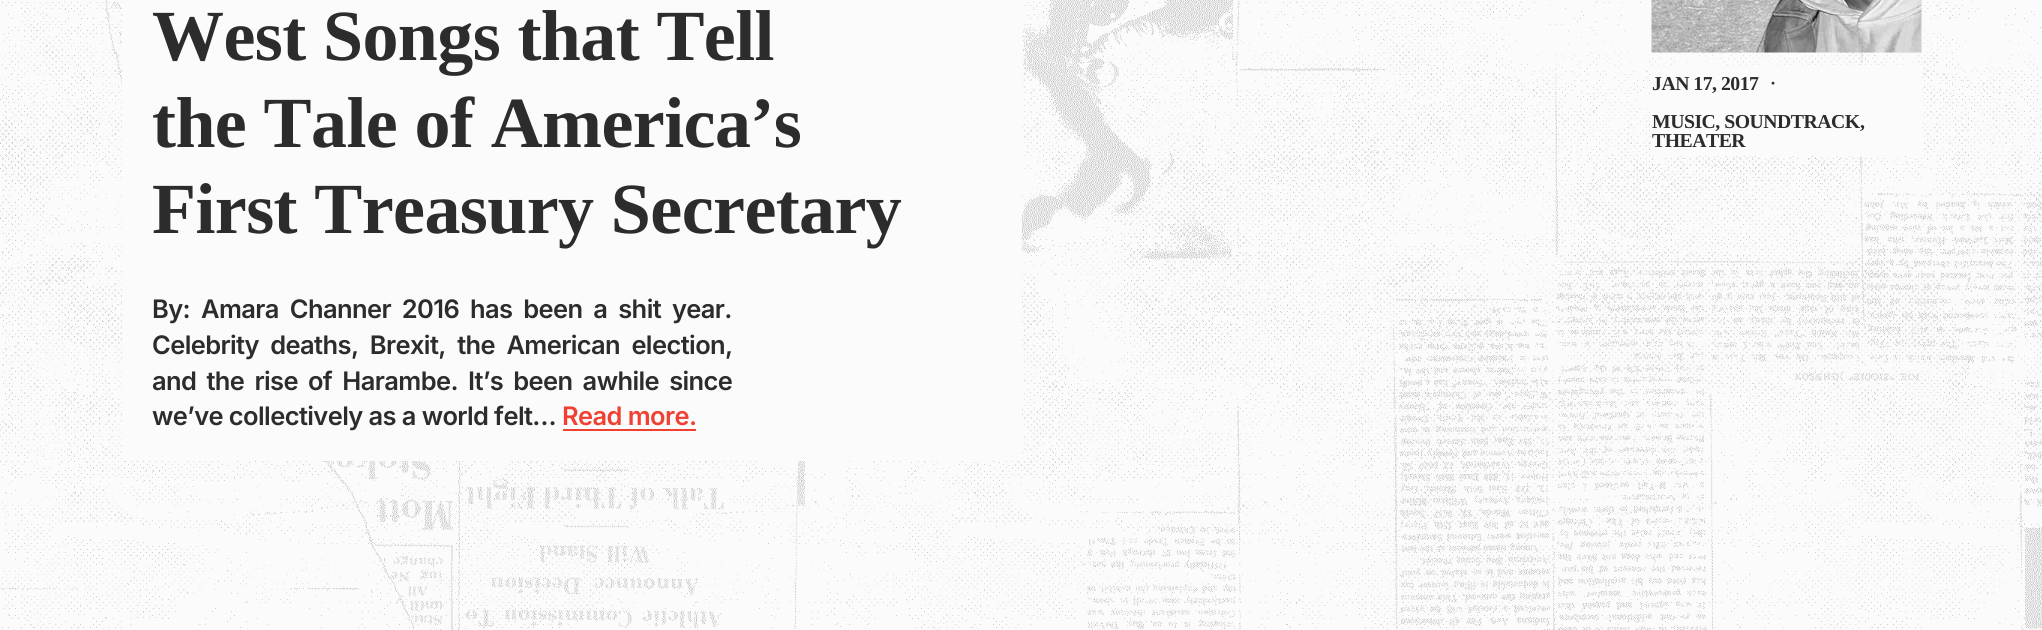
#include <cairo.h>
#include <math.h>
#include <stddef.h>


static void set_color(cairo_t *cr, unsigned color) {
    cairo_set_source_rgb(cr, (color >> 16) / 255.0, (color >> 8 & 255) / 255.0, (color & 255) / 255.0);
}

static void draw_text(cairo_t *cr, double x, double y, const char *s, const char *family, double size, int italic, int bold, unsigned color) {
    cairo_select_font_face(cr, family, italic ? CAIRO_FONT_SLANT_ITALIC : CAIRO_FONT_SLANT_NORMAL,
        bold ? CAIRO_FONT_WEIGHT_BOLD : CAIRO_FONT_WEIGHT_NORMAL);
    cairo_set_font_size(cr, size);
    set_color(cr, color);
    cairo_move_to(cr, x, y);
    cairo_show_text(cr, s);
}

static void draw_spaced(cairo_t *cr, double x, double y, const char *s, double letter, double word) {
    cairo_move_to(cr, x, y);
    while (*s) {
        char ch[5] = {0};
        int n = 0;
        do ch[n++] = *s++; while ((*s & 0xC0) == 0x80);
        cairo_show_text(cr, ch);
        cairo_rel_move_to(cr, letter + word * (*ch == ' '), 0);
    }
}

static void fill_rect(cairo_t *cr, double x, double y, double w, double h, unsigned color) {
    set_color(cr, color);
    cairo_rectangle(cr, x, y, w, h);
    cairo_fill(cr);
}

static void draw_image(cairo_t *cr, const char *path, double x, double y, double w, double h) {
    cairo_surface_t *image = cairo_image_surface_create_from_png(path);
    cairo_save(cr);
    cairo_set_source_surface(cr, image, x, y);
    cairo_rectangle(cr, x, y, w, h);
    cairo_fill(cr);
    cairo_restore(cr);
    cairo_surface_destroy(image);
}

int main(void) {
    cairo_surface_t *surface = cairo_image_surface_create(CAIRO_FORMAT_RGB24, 2042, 630);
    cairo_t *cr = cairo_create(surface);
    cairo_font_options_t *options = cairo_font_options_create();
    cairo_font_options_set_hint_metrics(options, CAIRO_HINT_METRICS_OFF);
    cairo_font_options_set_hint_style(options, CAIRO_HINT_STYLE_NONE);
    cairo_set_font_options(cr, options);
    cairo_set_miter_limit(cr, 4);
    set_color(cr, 0xFFFFFF);
    cairo_paint(cr);
    draw_image(cr, "assets/img1.png", 0, 0, 2042, 630);
    fill_rect(cr, 122, 0, 900, 461, 0xFBFBFB);
    cairo_select_font_face(cr, "Liberation Serif", CAIRO_FONT_SLANT_NORMAL, CAIRO_FONT_WEIGHT_BOLD);
    cairo_set_font_size(cr, 72);
    set_color(cr, 0x2C2C2C);
    draw_spaced(cr, 152, 60, "West Songs that Tell", -0.6, 0);
    draw_spaced(cr, 152, 147, "the Tale of America’s", -0.6, 0);
    draw_spaced(cr, 152, 233, "First Treasury Secretary", -0.6, 0);
    cairo_select_font_face(cr, "Inter SemiBold", CAIRO_FONT_SLANT_NORMAL, CAIRO_FONT_WEIGHT_NORMAL);
    cairo_set_font_size(cr, 25.5);
    draw_spaced(cr, 152, 318, "By: Amara Channer 2016 has been a shit year.", -0.6, 5);
    draw_spaced(cr, 152, 354, "Celebrity deaths, Brexit, the American election,", -0.6, 5.5);
    draw_spaced(cr, 152, 390, "and the rise of Harambe. It’s been awhile since", -0.6, 4.25);
    draw_spaced(cr, 152, 425, "we’ve collectively as a world felt…", -0.6, 0);
    set_color(cr, 0xF04031);
    draw_spaced(cr, 562, 425, "Read more.", -0.6, 0);
    fill_rect(cr, 563, 429, 133, 2, 0xF04031);
    draw_image(cr, "assets/img2.png", 1651, 0, 271, 53);
    fill_rect(cr, 1652, 65, 270, 91, 0xFBFBFB);
    cairo_select_font_face(cr, "Liberation Serif", CAIRO_FONT_SLANT_NORMAL, CAIRO_FONT_WEIGHT_BOLD);
    cairo_set_font_size(cr, 19.75);
    set_color(cr, 0x2C2C2C);
    draw_spaced(cr, 1652, 90, "JAN 17, 2017", -0.5, 0);
    draw_text(cr, 1770, 90, "·", "Inter Medium", 19.75, 0, 0, 0x2C2C2C);
    cairo_select_font_face(cr, "Liberation Serif", CAIRO_FONT_SLANT_NORMAL, CAIRO_FONT_WEIGHT_BOLD);
    draw_spaced(cr, 1652, 128, "MUSIC, SOUNDTRACK", -0.5, 0);
    draw_spaced(cr, 1860, 128, ",", -0.5, 0);
    draw_spaced(cr, 1652, 147, "THEATER", -0.5, 0);
    cairo_surface_write_to_png(surface, "output.png");
    cairo_font_options_destroy(options);
    cairo_destroy(cr);
    cairo_surface_destroy(surface);
    return 0;
}
